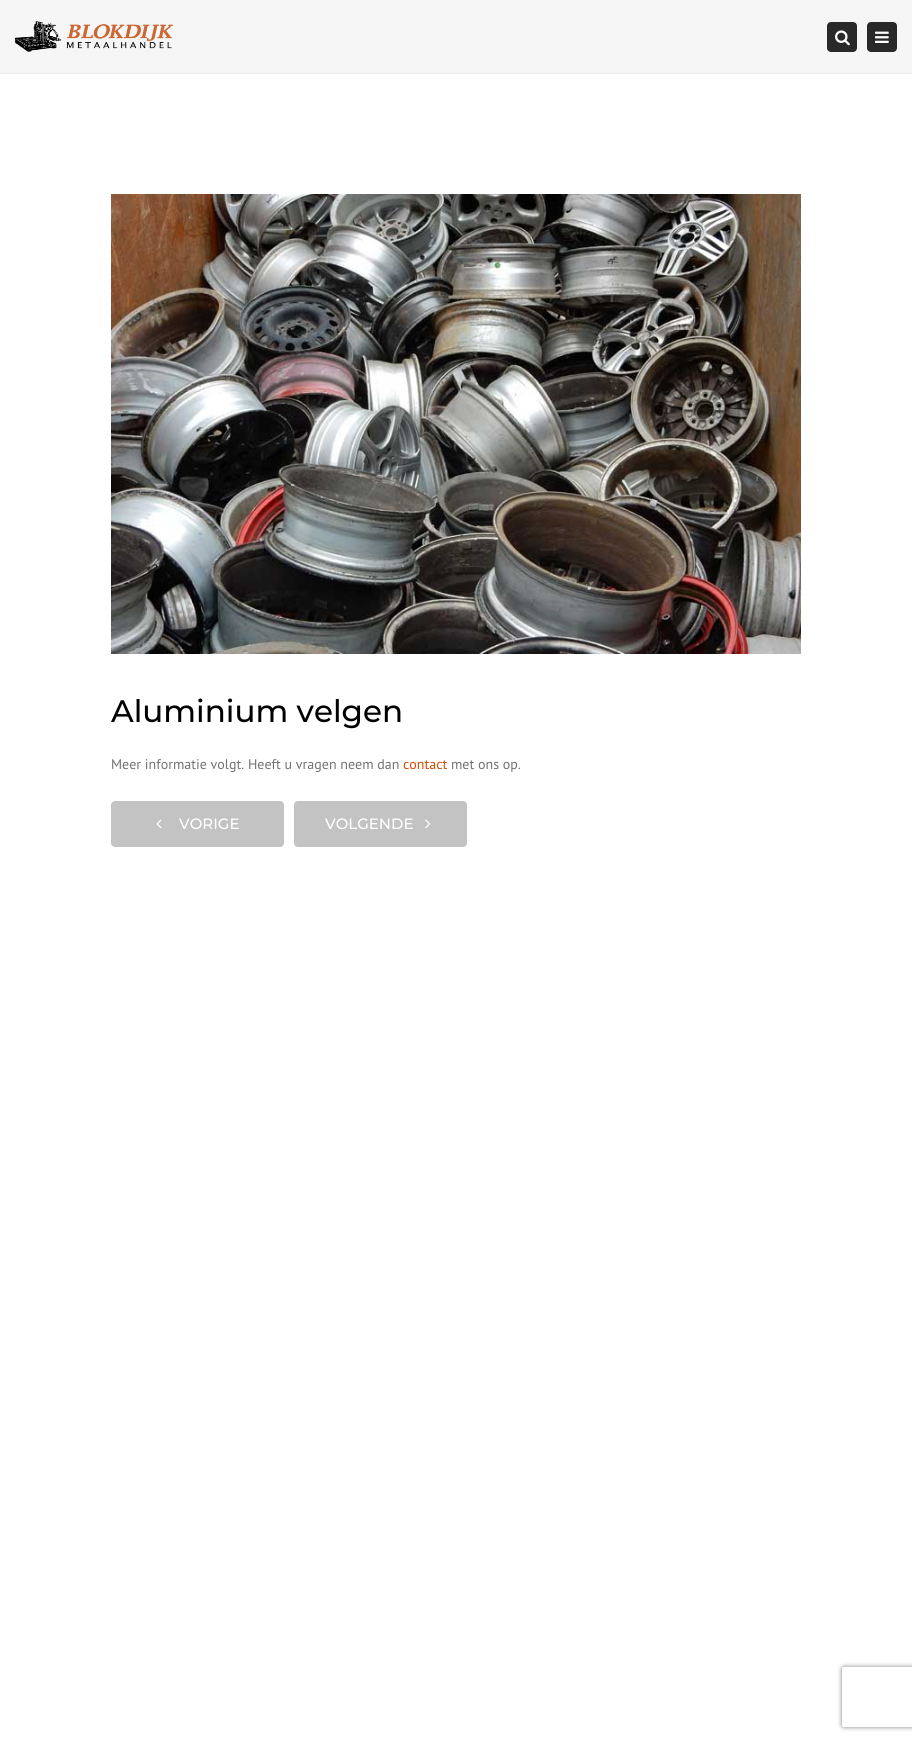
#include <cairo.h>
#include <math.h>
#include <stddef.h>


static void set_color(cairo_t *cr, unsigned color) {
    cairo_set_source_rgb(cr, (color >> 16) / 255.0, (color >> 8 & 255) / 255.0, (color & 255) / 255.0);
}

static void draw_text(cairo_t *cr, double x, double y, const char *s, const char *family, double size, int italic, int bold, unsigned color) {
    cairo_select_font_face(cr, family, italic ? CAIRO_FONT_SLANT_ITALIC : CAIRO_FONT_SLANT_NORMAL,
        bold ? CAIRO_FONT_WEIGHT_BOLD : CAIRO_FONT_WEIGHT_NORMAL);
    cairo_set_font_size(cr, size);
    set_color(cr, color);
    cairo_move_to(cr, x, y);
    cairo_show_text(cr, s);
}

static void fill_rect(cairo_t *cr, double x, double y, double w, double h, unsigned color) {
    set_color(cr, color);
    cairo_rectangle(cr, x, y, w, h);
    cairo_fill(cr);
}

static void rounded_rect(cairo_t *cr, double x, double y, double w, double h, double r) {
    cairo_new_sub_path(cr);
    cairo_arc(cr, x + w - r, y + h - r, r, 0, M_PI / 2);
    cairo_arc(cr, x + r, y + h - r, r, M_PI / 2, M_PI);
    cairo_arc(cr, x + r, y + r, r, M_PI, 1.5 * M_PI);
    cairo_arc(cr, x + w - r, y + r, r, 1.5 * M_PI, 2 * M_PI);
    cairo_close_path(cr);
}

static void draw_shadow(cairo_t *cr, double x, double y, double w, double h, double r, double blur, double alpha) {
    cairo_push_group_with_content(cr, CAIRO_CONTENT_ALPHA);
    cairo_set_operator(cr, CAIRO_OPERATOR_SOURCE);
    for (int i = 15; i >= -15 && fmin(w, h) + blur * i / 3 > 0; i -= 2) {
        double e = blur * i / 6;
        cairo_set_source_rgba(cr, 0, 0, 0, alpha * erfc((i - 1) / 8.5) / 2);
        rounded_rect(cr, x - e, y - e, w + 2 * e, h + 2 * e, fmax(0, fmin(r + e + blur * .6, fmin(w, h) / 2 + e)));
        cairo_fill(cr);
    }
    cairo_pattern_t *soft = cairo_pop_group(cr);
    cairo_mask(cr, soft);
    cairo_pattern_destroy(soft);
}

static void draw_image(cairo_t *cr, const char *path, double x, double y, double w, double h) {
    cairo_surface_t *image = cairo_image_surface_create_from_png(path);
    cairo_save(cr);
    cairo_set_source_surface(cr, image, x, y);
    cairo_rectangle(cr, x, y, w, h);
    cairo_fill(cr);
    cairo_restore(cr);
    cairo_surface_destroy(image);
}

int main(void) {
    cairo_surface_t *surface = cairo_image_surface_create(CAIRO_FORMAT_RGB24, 912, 1741);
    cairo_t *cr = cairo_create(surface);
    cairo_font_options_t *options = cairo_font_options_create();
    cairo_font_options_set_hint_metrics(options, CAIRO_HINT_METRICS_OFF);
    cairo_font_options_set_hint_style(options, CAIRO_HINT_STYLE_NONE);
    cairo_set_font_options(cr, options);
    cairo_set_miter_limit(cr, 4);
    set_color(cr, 0xFFFFFF);
    cairo_paint(cr);
    fill_rect(cr, 0, 0, 912, 73, 0xF6F6F7);
    fill_rect(cr, 0, 73, 912, 1, 0xEAEAEB);
    draw_image(cr, "assets/img1.png", 15, 21, 158, 31);
    set_color(cr, 0x292929);
    rounded_rect(cr, 827, 22, 30, 30, 4);
    cairo_fill(cr);
    draw_image(cr, "assets/img2.png", 835, 30, 15, 16);
    rounded_rect(cr, 867, 22, 30, 30, 4);
    cairo_fill(cr);
    draw_image(cr, "assets/img3.png", 875, 31, 14, 12);
    draw_image(cr, "assets/img4.png", 111, 194, 690, 460);
    draw_text(cr, 111, 722, "Aluminium velgen", "Montserrat Medium", 31, 0, 0, 0x000000);
    draw_text(cr, 111, 769, "Meer informatie volgt. Heeft u vragen neem dan", "PT Sans", 14, 0, 0, 0x727272);
    draw_text(cr, 403, 769, "contact", "PT Sans", 14, 0, 0, 0xD54900);
    draw_text(cr, 451, 769, "met ons op.", "PT Sans", 14, 0, 0, 0x727272);
    set_color(cr, 0xC3C3C3);
    rounded_rect(cr, 111, 801, 173, 46, 4);
    cairo_fill(cr);
    draw_image(cr, "assets/img5.png", 156, 819, 6, 10);
    draw_text(cr, 179, 829, "VORIGE", "Montserrat Medium", 15, 0, 0, 0xFFFFFF);
    set_color(cr, 0xC3C3C3);
    rounded_rect(cr, 294, 801, 173, 46, 4);
    cairo_fill(cr);
    draw_text(cr, 325, 829, "VOLGENDE", "Montserrat Medium", 15, 0, 0, 0xFFFFFF);
    draw_image(cr, "assets/img6.png", 425, 819, 6, 10);
    cairo_save(cr);
    cairo_set_fill_rule(cr, CAIRO_FILL_RULE_EVEN_ODD);
    cairo_new_path(cr);
    cairo_move_to(cr, 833, 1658);
    cairo_line_to(cr, 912, 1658);
    cairo_line_to(cr, 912, 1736);
    cairo_line_to(cr, 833, 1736);
    cairo_close_path(cr);
    cairo_move_to(cr, 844, 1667);
    cairo_line_to(cr, 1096, 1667);
    cairo_curve_to(cr, 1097, 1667, 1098, 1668, 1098, 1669);
    cairo_line_to(cr, 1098, 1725);
    cairo_curve_to(cr, 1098, 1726, 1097, 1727, 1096, 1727);
    cairo_line_to(cr, 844, 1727);
    cairo_curve_to(cr, 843, 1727, 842, 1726, 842, 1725);
    cairo_line_to(cr, 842, 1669);
    cairo_curve_to(cr, 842, 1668, 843, 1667, 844, 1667);
    cairo_close_path(cr);
    cairo_clip(cr);
    set_color(cr, 0x808080);
    draw_shadow(cr, 842, 1667, 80, 60, 2, 2.5, 1);
    cairo_restore(cr);
    cairo_surface_write_to_png(surface, "output.png");
    cairo_font_options_destroy(options);
    cairo_destroy(cr);
    cairo_surface_destroy(surface);
    return 0;
}
